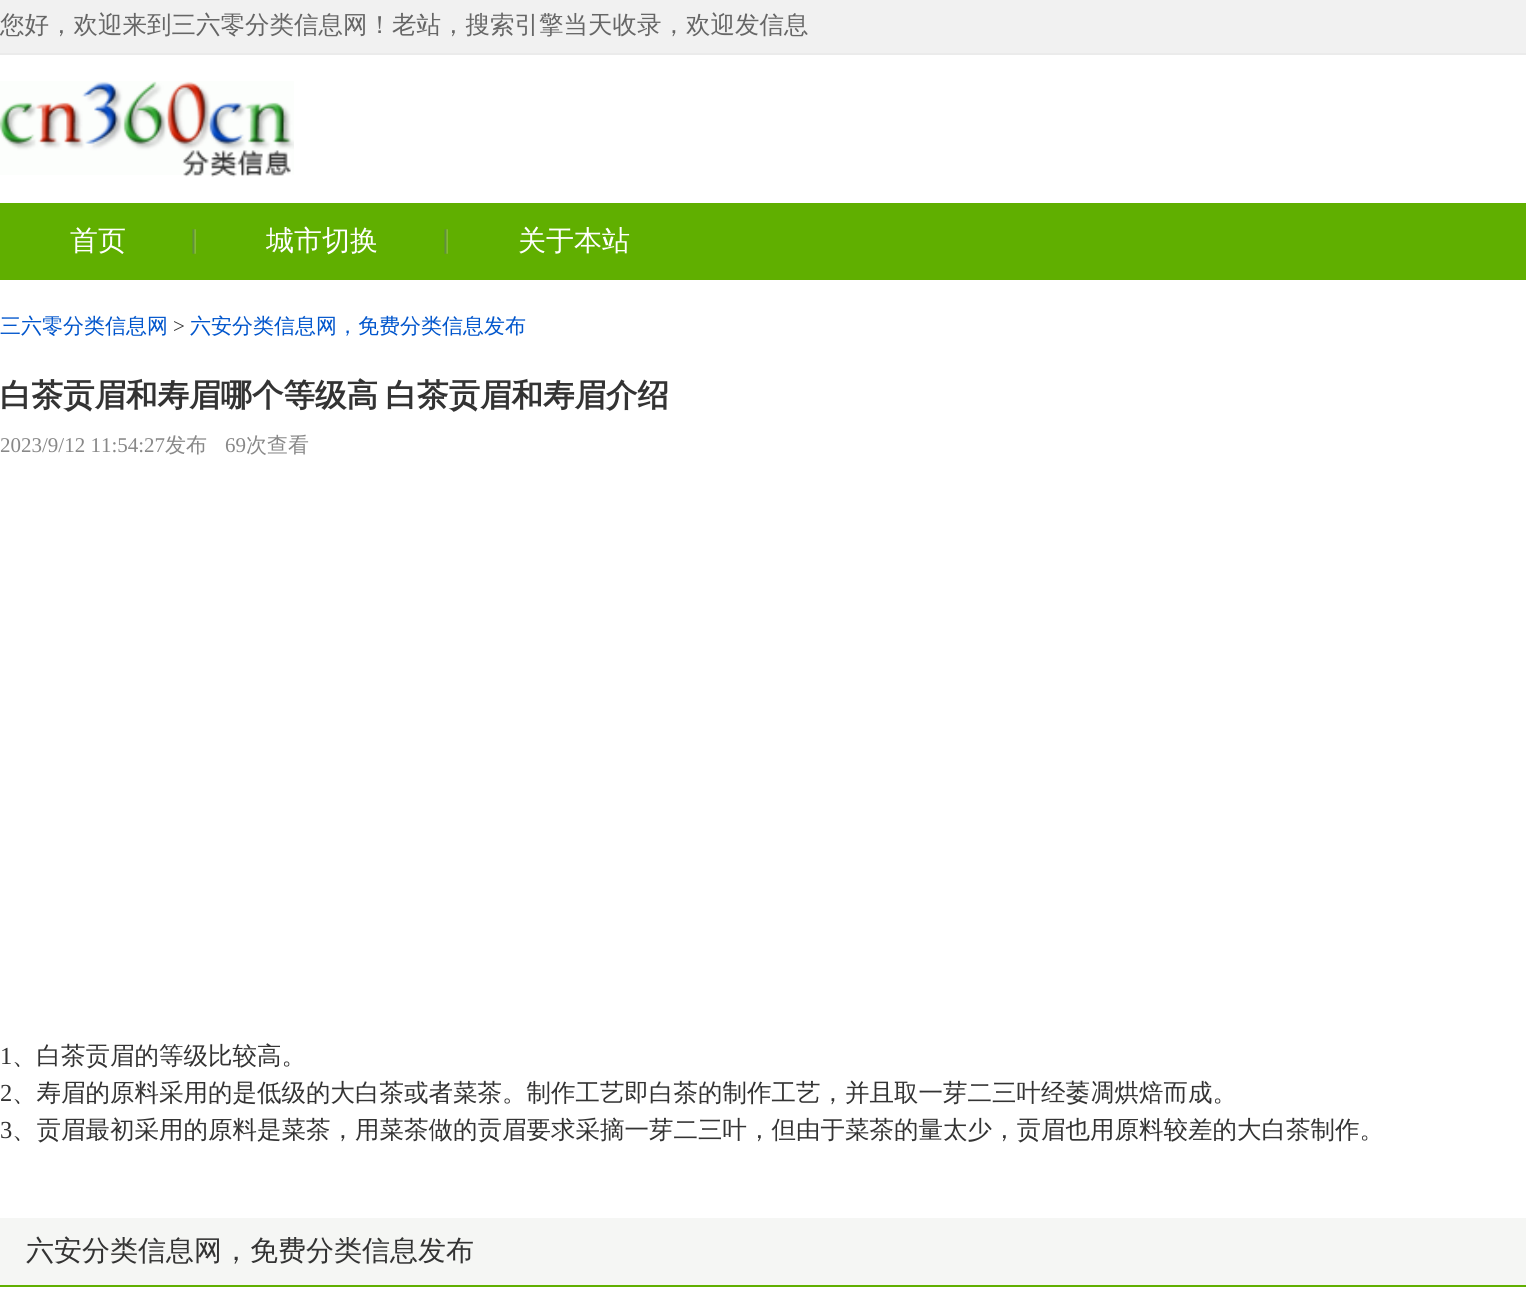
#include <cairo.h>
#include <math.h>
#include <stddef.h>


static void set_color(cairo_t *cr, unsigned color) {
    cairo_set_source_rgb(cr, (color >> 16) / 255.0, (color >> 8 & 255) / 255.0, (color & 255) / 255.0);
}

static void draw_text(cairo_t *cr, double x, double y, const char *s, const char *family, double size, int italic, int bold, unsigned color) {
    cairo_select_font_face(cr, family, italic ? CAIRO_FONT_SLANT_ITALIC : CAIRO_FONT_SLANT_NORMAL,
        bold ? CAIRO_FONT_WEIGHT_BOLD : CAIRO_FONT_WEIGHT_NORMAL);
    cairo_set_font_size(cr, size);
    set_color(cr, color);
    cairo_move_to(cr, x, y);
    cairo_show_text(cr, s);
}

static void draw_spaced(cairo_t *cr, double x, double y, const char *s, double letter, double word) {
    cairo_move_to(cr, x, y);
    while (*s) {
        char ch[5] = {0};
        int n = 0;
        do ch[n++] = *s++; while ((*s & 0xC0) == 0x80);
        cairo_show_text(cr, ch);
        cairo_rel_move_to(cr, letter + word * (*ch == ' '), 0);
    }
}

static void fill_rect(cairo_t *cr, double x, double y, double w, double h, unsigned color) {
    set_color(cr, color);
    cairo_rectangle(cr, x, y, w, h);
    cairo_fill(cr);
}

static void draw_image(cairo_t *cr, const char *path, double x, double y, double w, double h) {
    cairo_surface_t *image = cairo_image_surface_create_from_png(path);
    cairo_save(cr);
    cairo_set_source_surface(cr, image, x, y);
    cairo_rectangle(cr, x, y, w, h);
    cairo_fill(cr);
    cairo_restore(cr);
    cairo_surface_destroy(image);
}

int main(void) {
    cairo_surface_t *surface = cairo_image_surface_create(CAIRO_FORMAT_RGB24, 1526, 1316);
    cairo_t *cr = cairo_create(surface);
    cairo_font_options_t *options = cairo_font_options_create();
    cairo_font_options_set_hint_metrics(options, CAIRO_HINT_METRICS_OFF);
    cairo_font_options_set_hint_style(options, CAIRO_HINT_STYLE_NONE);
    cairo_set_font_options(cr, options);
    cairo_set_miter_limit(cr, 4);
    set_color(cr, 0xFFFFFF);
    cairo_paint(cr);
    fill_rect(cr, 0, 0, 1526, 53, 0xF1F1F1);
    fill_rect(cr, 0, 53, 1526, 2, 0xEBEBEB);
    draw_text(cr, 0, 33, "您好，欢迎来到三六零分类信息网！老站，搜索引擎当天收录，欢迎发信息", "WenQuanYi Zen Hei Medium", 24.5, 0, 0, 0x666666);
    draw_image(cr, "assets/img1.png", 0, 81, 294, 96);
    fill_rect(cr, 0, 203, 1526, 77, 0x60AF00);
    draw_image(cr, "assets/img2.png", 192, 229, 4, 25);
    draw_text(cr, 70, 250, "首页", "WenQuanYi Zen Hei Medium", 28, 0, 0, 0xFFFFFF);
    draw_image(cr, "assets/img2.png", 444, 229, 4, 25);
    draw_text(cr, 266, 250, "城市切换", "WenQuanYi Zen Hei Medium", 28, 0, 0, 0xFFFFFF);
    draw_text(cr, 518, 250, "关于本站", "WenQuanYi Zen Hei Medium", 28, 0, 0, 0xFFFFFF);
    draw_text(cr, 0, 333, "三六零分类信息网", "WenQuanYi Zen Hei Medium", 21, 0, 0, 0x0055CC);
    draw_text(cr, 173, 333, ">", "Liberation Serif", 21, 0, 0, 0x333333);
    draw_text(cr, 190, 333, "六安分类信息网，免费分类信息发布", "WenQuanYi Zen Hei Medium", 21, 0, 0, 0x0055CC);
    cairo_select_font_face(cr, "WenQuanYi Zen Hei", CAIRO_FONT_SLANT_NORMAL, CAIRO_FONT_WEIGHT_BOLD);
    cairo_set_font_size(cr, 31.5);
    set_color(cr, 0x333333);
    draw_spaced(cr, 0, 406, "白茶贡眉和寿眉哪个等级高 白茶贡眉和寿眉介绍", 0, -2);
    draw_text(cr, 0, 452, "2023/9/12 11:54:27", "Liberation Serif", 21, 0, 0, 0x888888);
    draw_text(cr, 165, 452, "发布", "WenQuanYi Zen Hei Medium", 21, 0, 0, 0x888888);
    draw_text(cr, 225, 452, "69", "Liberation Serif", 21, 0, 0, 0x888888);
    draw_text(cr, 246, 452, "次查看", "WenQuanYi Zen Hei Medium", 21, 0, 0, 0x888888);
    draw_text(cr, 0, 1064, "1", "Liberation Serif", 24.5, 0, 0, 0x333333);
    draw_text(cr, 12, 1064, "、白茶贡眉的等级比较高。", "WenQuanYi Zen Hei Medium", 24.5, 0, 0, 0x333333);
    draw_text(cr, 0, 1101, "2", "Liberation Serif", 24.5, 0, 0, 0x333333);
    draw_text(cr, 12, 1101, "、寿眉的原料采用的是低级的大白茶或者菜茶。制作工艺即白茶的制作工艺，并且取一芽二三叶经萎凋烘焙而成。", "WenQuanYi Zen Hei Medium", 24.5, 0, 0, 0x333333);
    draw_text(cr, 0, 1138, "3", "Liberation Serif", 24.5, 0, 0, 0x333333);
    draw_text(cr, 12, 1138, "、贡眉最初采用的原料是菜茶，用菜茶做的贡眉要求采摘一芽二三叶，但由于菜茶的量太少，贡眉也用原料较差的大白茶制作。", "WenQuanYi Zen Hei Medium", 24.5, 0, 0, 0x333333);
    fill_rect(cr, 0, 1218, 1526, 67, 0xF5F6F4);
    fill_rect(cr, 0, 1285, 1526, 2, 0x60AF00);
    draw_text(cr, 26, 1260, "六安分类信息网，免费分类信息发布", "WenQuanYi Zen Hei Medium", 28, 0, 0, 0x333333);
    cairo_surface_write_to_png(surface, "output.png");
    cairo_font_options_destroy(options);
    cairo_destroy(cr);
    cairo_surface_destroy(surface);
    return 0;
}
